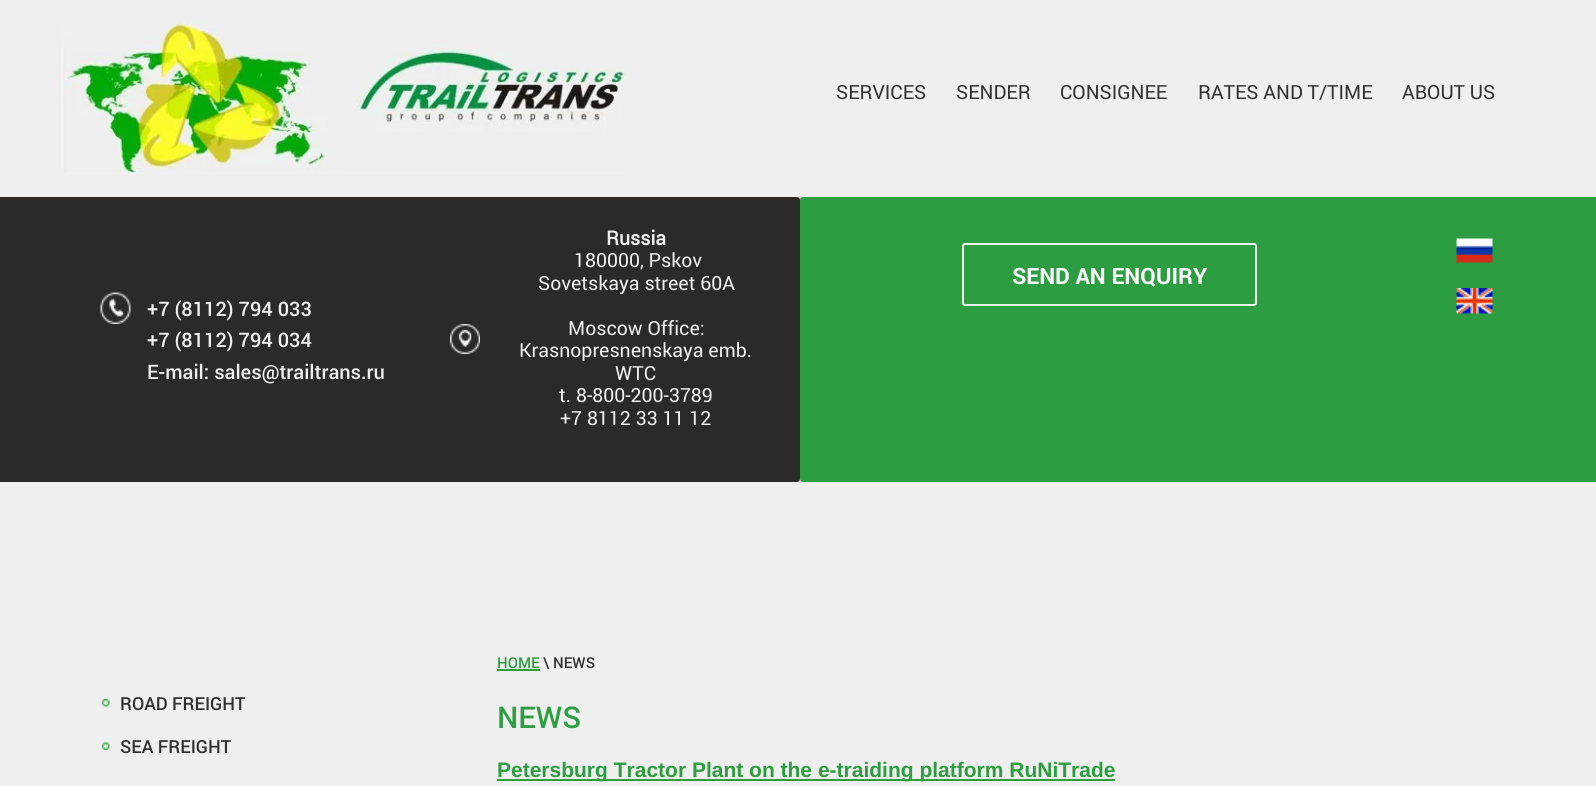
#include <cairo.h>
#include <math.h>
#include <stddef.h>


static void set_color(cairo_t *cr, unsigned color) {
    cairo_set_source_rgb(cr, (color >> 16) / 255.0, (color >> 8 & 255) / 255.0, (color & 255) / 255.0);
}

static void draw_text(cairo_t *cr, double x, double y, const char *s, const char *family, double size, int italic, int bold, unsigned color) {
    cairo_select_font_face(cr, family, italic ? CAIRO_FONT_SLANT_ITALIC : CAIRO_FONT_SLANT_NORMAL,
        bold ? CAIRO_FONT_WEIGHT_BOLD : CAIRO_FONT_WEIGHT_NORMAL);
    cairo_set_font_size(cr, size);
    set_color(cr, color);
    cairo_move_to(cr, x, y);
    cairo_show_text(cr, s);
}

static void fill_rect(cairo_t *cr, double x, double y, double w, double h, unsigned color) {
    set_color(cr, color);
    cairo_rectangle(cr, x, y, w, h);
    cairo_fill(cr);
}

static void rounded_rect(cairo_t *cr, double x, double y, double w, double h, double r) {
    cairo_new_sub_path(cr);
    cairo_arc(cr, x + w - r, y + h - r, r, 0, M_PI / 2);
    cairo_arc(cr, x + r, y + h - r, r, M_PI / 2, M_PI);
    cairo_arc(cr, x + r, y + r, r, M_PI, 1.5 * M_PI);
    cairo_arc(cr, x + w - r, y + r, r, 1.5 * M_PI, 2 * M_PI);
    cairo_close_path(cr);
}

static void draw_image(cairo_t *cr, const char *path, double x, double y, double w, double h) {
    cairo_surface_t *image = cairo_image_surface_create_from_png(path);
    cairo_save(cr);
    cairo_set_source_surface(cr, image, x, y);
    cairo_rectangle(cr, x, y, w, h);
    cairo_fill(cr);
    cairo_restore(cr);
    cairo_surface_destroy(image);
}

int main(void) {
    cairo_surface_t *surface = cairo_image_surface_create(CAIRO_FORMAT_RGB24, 1596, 786);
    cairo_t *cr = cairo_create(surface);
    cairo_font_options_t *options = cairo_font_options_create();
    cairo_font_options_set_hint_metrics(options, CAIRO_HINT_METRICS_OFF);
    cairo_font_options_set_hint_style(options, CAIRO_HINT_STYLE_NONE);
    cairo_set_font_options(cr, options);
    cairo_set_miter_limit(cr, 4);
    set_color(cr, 0xEFEFEF);
    cairo_paint(cr);
    draw_image(cr, "assets/img1.png", 61, 22, 565, 152);
    draw_text(cr, 836, 99, "SERVICES", "Roboto", 19.5, 0, 0, 0x303030);
    draw_text(cr, 956, 99, "SENDER", "Roboto", 19.5, 0, 0, 0x303030);
    draw_text(cr, 1060, 99, "CONSIGNEE", "Roboto", 19.5, 0, 0, 0x303030);
    draw_text(cr, 1198, 99, "RATES AND T/TIME", "Roboto", 19.5, 0, 0, 0x303030);
    draw_text(cr, 1402, 99, "ABOUT US", "Roboto", 19.5, 0, 0, 0x303030);
    fill_rect(cr, 0, 197, 62, 285, 0x2B2A29);
    cairo_new_path(cr);
    cairo_move_to(cr, 62, 197);
    cairo_line_to(cr, 797, 197);
    cairo_curve_to(cr, 798.5, 197, 800, 198.5, 800, 200);
    cairo_line_to(cr, 800, 479);
    cairo_curve_to(cr, 800, 480.5, 798.5, 482, 797, 482);
    cairo_line_to(cr, 62, 482);
    cairo_close_path(cr);
    cairo_fill(cr);
    draw_image(cr, "assets/img2.png", 100, 292, 31, 32);
    draw_text(cr, 147, 316, "+7 (8112) 794 033", "Roboto Medium", 20, 0, 0, 0xEFEFEF);
    draw_text(cr, 147, 347, "+7 (8112) 794 034", "Roboto Medium", 20, 0, 0, 0xEFEFEF);
    draw_text(cr, 147, 379, "E-mail: sales@trailtrans.ru", "Roboto Medium", 20, 0, 0, 0xEFEFEF);
    draw_image(cr, "assets/img3.png", 450, 324, 30, 30);
    draw_text(cr, 606, 245, "Russia", "Roboto", 19.5, 0, 1, 0xEFEFEF);
    draw_text(cr, 574, 267, "180000, Pskov", "Roboto", 19.5, 0, 0, 0xEFEFEF);
    draw_text(cr, 538, 290, "Sovetskaya street 60A", "Roboto", 19.5, 0, 0, 0xEFEFEF);
    draw_text(cr, 568, 335, "Moscow Office:", "Roboto", 19.5, 0, 0, 0xEFEFEF);
    draw_text(cr, 519, 357, "Krasnopresnenskaya emb.", "Roboto", 19.5, 0, 0, 0xEFEFEF);
    draw_text(cr, 615, 380, "WTC", "Roboto", 19.5, 0, 0, 0xEFEFEF);
    draw_text(cr, 559, 402, "t.", "Roboto", 19.5, 0, 0, 0xFFFFFF);
    draw_text(cr, 576, 402, "8-800-200-3789", "Roboto", 19.5, 0, 0, 0xEFEFEF);
    draw_text(cr, 560, 425, "+7 8112 33 11 12", "Roboto", 19.5, 0, 0, 0xEFEFEF);
    set_color(cr, 0x2C9D40);
    cairo_new_path(cr);
    cairo_move_to(cr, 803, 197);
    cairo_line_to(cr, 1535, 197);
    cairo_line_to(cr, 1535, 482);
    cairo_line_to(cr, 803, 482);
    cairo_curve_to(cr, 801.5, 482, 800, 480.5, 800, 479);
    cairo_line_to(cr, 800, 200);
    cairo_curve_to(cr, 800, 198.5, 801.5, 197, 803, 197);
    cairo_close_path(cr);
    cairo_fill(cr);
    rounded_rect(cr, 963, 244, 293, 61, 2);
    set_color(cr, 0xEFEFEF);
    cairo_stroke(cr);
    draw_text(cr, 1012, 284, "SEND AN ENQUIRY", "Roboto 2", 22.5, 0, 1, 0xFFFFFF);
    draw_image(cr, "assets/img4.png", 1456, 238, 37, 25);
    draw_image(cr, "assets/img5.png", 1456, 288, 37, 26);
    fill_rect(cr, 1535, 197, 61, 285, 0x2C9D40);
    draw_image(cr, "assets/img6.png", 101, 699, 9, 8);
    draw_text(cr, 120, 710, "ROAD FREIGHT", "Roboto Medium", 18, 0, 0, 0x303030);
    draw_image(cr, "assets/img7.png", 101, 742, 9, 8);
    draw_text(cr, 120, 753, "SEA FREIGHT", "Roboto Medium", 18, 0, 0, 0x303030);
    draw_text(cr, 497, 668, "HOME", "Roboto Medium", 15, 0, 0, 0x2D9E40);
    fill_rect(cr, 497, 669, 43, 2, 0x2D9E40);
    draw_text(cr, 543, 668, "\\ NEWS", "Roboto Medium", 15, 0, 0, 0x303030);
    draw_text(cr, 497, 728, "NEWS", "Roboto Medium", 30, 0, 0, 0x2D9E40);
    fill_rect(cr, 497, 779, 618, 2, 0x2D9E40);
    draw_text(cr, 497, 777, "Petersburg Tractor Plant on the e-traiding platform RuNiTrade", "Liberation Sans", 21, 0, 1, 0x2D9E40);
    cairo_surface_write_to_png(surface, "output.png");
    cairo_font_options_destroy(options);
    cairo_destroy(cr);
    cairo_surface_destroy(surface);
    return 0;
}
